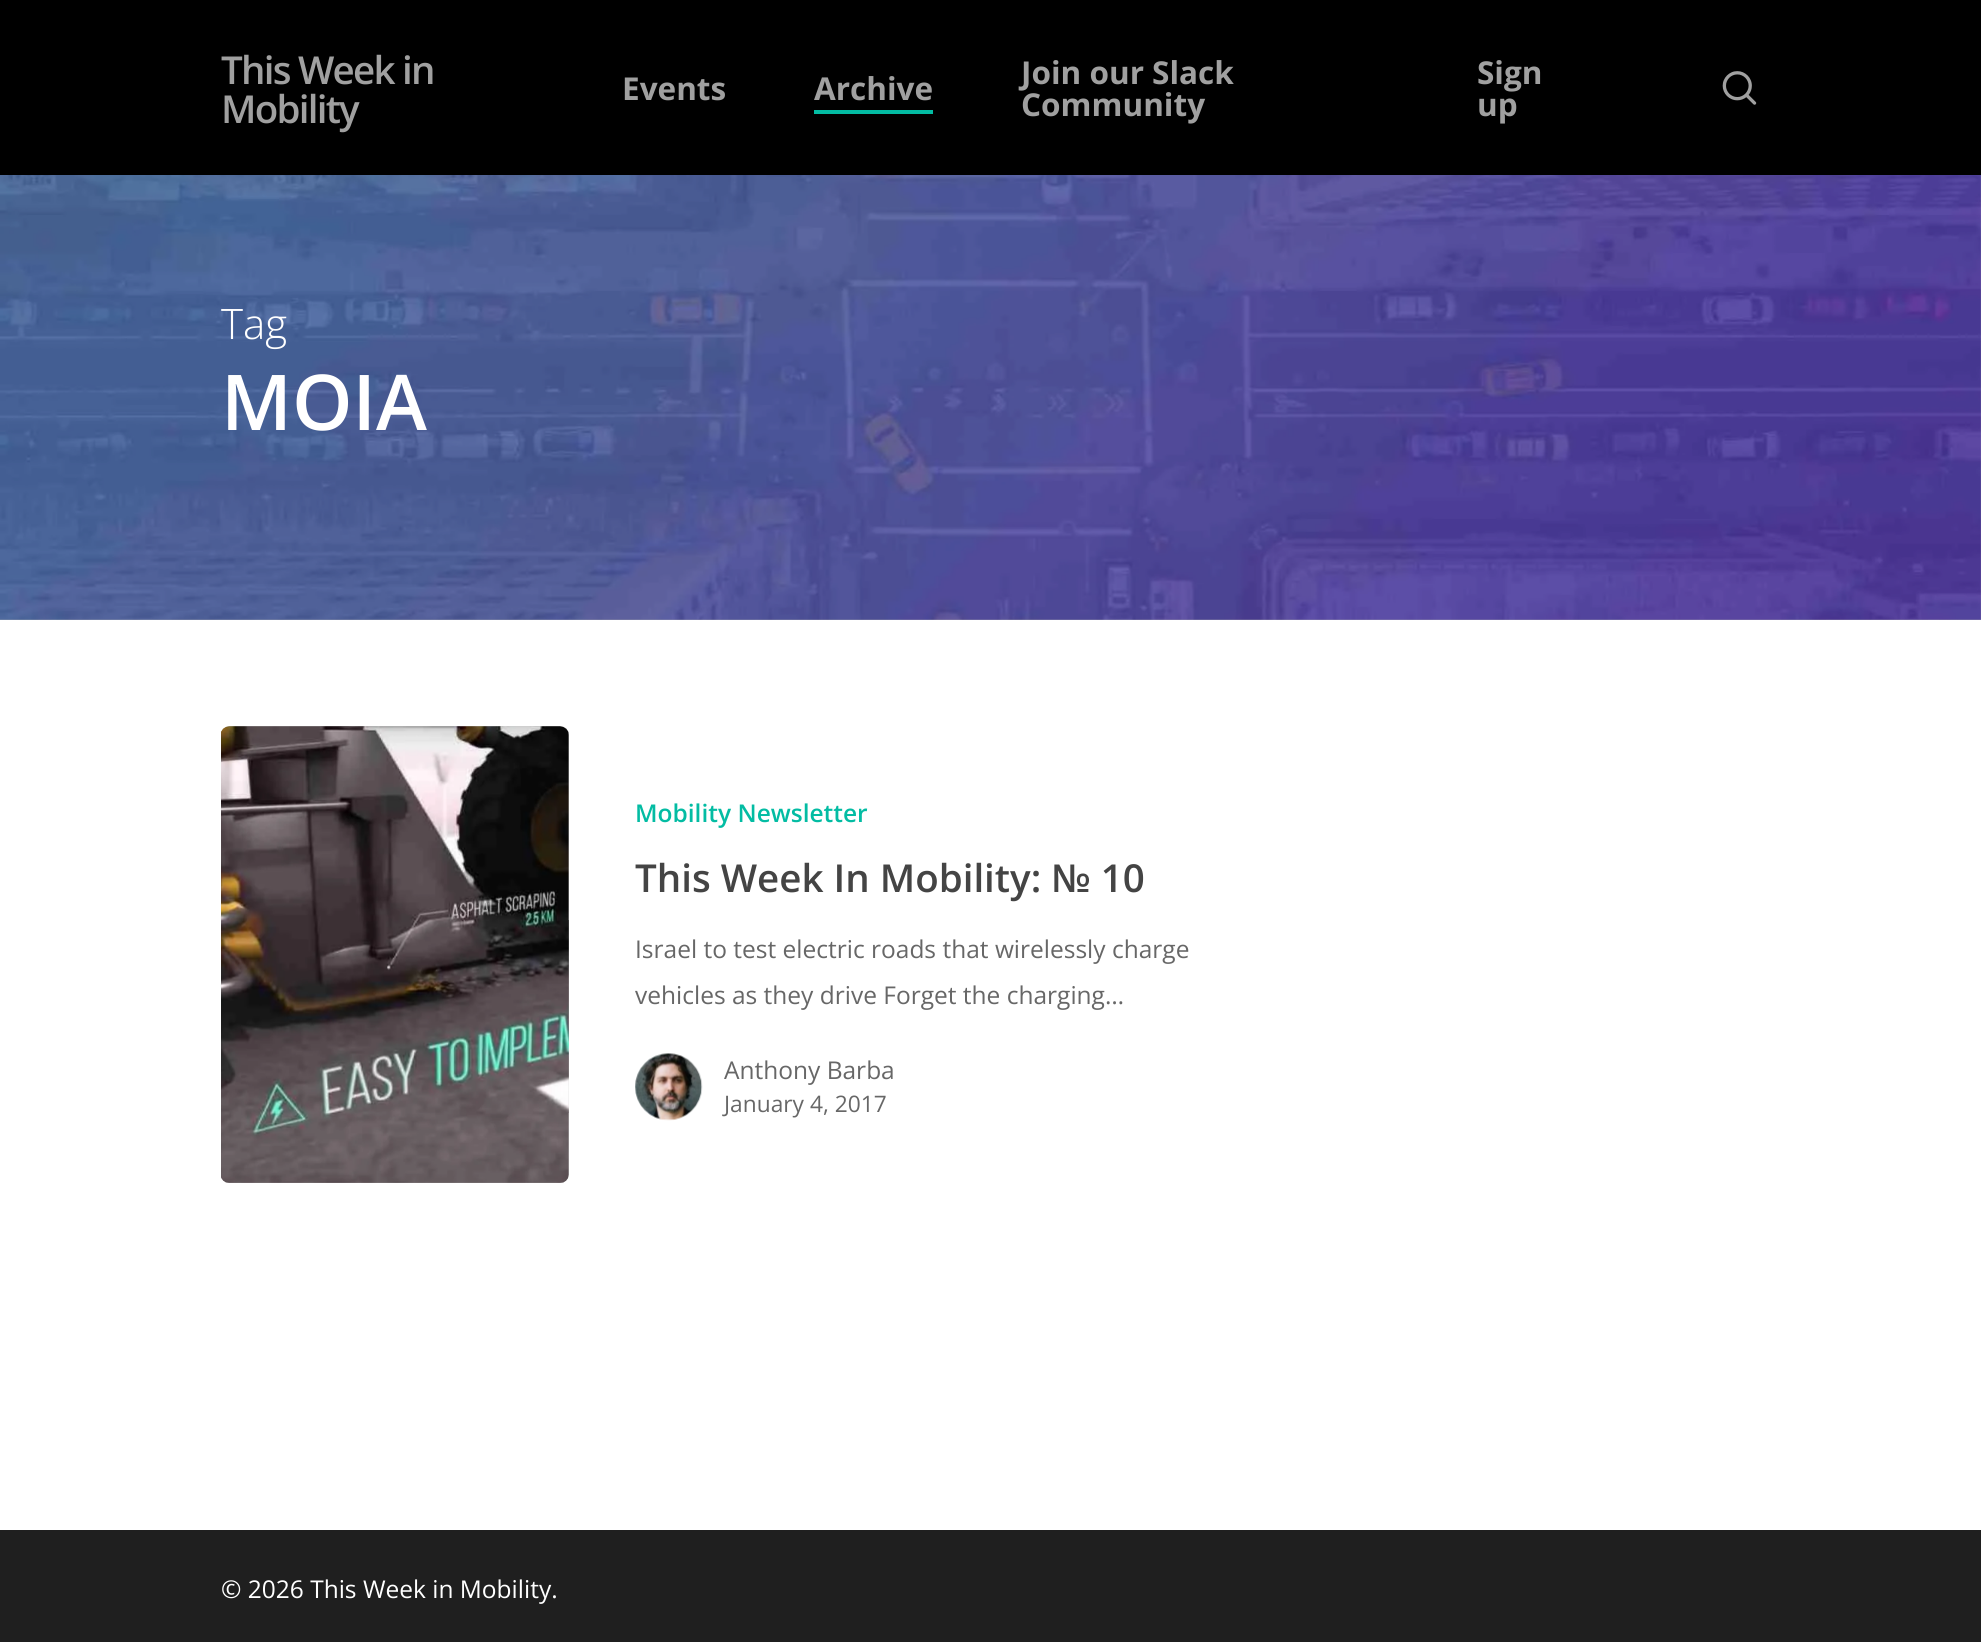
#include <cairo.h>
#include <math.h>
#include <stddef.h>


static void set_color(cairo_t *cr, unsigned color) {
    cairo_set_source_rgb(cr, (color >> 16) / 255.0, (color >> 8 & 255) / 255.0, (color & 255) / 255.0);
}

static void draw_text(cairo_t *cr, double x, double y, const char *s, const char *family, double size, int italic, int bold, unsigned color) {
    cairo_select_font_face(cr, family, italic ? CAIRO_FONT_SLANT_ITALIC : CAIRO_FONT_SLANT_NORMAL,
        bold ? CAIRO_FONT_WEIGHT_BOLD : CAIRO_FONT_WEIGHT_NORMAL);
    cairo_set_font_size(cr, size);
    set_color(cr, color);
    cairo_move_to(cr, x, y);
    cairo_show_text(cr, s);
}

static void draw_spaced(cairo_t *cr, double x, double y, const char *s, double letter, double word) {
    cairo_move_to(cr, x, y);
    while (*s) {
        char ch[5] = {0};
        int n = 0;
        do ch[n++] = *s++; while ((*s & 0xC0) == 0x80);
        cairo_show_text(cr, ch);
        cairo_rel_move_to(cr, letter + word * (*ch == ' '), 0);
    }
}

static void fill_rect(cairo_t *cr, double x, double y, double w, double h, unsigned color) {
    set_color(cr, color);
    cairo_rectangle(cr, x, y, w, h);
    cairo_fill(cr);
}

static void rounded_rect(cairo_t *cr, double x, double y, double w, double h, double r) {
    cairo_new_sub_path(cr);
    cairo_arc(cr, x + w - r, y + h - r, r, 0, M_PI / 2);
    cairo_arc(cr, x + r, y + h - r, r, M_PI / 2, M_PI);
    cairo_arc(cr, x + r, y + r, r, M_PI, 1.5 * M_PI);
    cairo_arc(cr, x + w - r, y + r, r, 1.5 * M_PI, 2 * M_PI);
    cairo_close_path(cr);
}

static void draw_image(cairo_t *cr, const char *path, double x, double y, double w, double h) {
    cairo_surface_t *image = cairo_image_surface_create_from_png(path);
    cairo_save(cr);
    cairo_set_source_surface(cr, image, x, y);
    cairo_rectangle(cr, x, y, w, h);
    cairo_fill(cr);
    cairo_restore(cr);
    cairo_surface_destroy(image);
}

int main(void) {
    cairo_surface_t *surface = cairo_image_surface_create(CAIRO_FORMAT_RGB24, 1981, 1642);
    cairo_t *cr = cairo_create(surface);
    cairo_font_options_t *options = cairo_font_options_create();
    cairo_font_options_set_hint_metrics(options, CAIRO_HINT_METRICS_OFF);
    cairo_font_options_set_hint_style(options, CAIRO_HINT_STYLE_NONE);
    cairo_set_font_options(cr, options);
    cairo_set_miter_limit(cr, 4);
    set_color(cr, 0xFFFFFF);
    cairo_paint(cr);
    fill_rect(cr, 0, 175, 1981, 445, 0xAFAFAF);
    fill_rect(cr, 0, 0, 1981, 175, 0x000000);
    cairo_select_font_face(cr, "Open Sans SemiBold", CAIRO_FONT_SLANT_NORMAL, CAIRO_FONT_WEIGHT_NORMAL);
    cairo_set_font_size(cr, 38.5);
    set_color(cr, 0xA0A0A0);
    draw_spaced(cr, 221, 84, "This Week in", -1.75, 0);
    draw_spaced(cr, 221, 123, "Mobility", -1.75, 0);
    draw_text(cr, 622, 100, "Events", "Open Sans", 31.5, 0, 1, 0xA0A0A0);
    draw_text(cr, 814, 100, "Archive", "Open Sans", 31.5, 0, 1, 0xA0A0A0);
    fill_rect(cr, 814, 110, 119, 4, 0x03BCA3);
    draw_text(cr, 1021, 84, "Join our Slack", "Open Sans", 31.5, 0, 1, 0xA0A0A0);
    draw_text(cr, 1021, 116, "Community", "Open Sans", 31.5, 0, 1, 0xA0A0A0);
    draw_text(cr, 1477, 84, "Sign", "Open Sans", 31.5, 0, 1, 0xA0A0A0);
    draw_text(cr, 1477, 116, "up", "Open Sans", 31.5, 0, 1, 0xA0A0A0);
    draw_image(cr, "assets/img1.png", 1722, 71, 35, 34);
    draw_image(cr, "assets/img2.png", 0, 175, 1981, 445);
    draw_text(cr, 221, 339, "Tag", "Open Sans Light", 42, 0, 0, 0xFFFFFF);
    draw_text(cr, 221, 430, "MOIA", "Open Sans SemiBold", 77, 0, 0, 0xFFFFFF);
    set_color(cr, 0xC0C0C0);
    rounded_rect(cr, 221, 726, 348, 457, 9);
    cairo_fill(cr);
    draw_image(cr, "assets/img3.png", 221, 726, 348, 457);
    draw_text(cr, 635, 822, "Mobility Newsletter", "Open Sans SemiBold", 24.5, 0, 0, 0x03BCA3);
    draw_text(cr, 635, 892, "This Week In Mobility: № 10", "Open Sans SemiBold", 38.5, 0, 0, 0x444444);
    draw_text(cr, 635, 958, "Israel to test electric roads that wirelessly charge", "Open Sans", 24.5, 0, 0, 0x676767);
    draw_text(cr, 635, 1004, "vehicles as they drive Forget the charging…", "Open Sans", 24.5, 0, 0, 0x676767);
    draw_image(cr, "assets/img4.png", 635, 1053, 68, 68);
    draw_text(cr, 724, 1079, "Anthony Barba", "Open Sans", 24.5, 0, 0, 0x676767);
    draw_text(cr, 724, 1112, "January 4, 2017", "Open Sans", 22.75, 0, 0, 0x676767);
    fill_rect(cr, 0, 1530, 1981, 112, 0x1F1F1F);
    draw_text(cr, 221, 1598, "© 2026 This Week in Mobility.", "Open Sans", 24.5, 0, 0, 0xFFFFFF);
    cairo_surface_write_to_png(surface, "output.png");
    cairo_font_options_destroy(options);
    cairo_destroy(cr);
    cairo_surface_destroy(surface);
    return 0;
}
